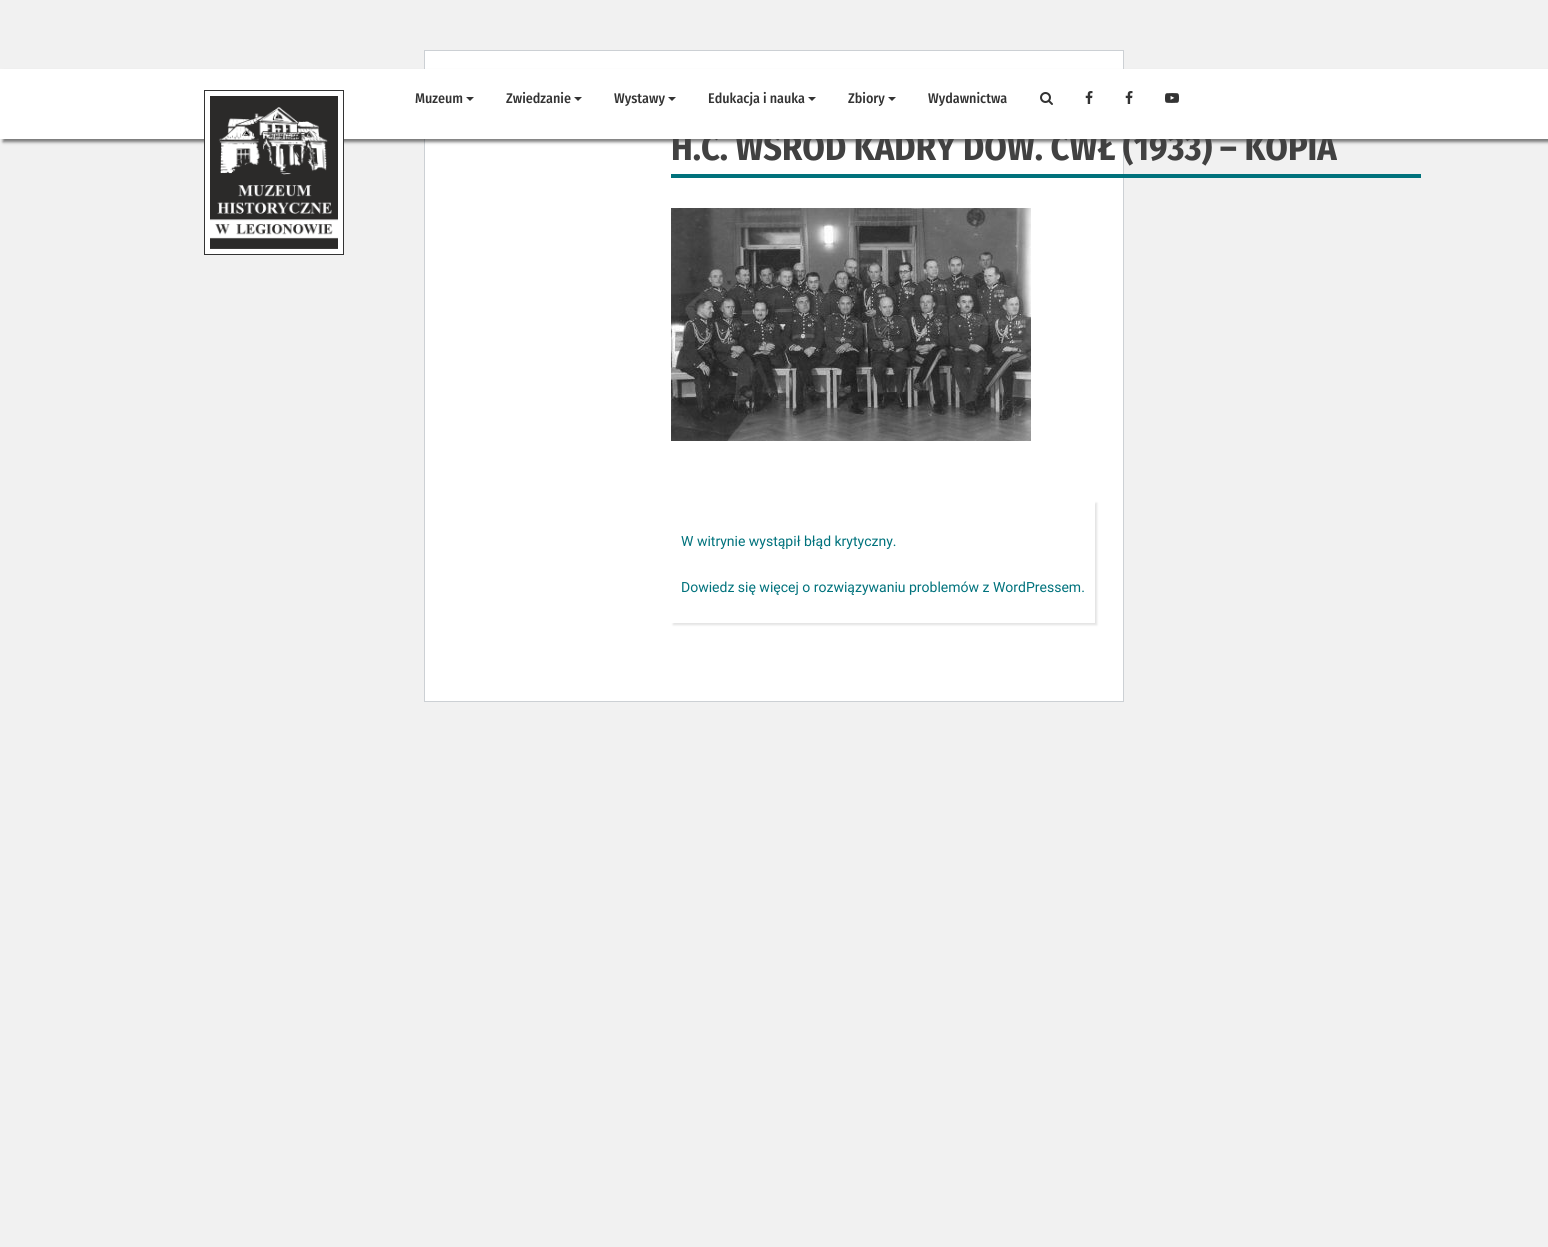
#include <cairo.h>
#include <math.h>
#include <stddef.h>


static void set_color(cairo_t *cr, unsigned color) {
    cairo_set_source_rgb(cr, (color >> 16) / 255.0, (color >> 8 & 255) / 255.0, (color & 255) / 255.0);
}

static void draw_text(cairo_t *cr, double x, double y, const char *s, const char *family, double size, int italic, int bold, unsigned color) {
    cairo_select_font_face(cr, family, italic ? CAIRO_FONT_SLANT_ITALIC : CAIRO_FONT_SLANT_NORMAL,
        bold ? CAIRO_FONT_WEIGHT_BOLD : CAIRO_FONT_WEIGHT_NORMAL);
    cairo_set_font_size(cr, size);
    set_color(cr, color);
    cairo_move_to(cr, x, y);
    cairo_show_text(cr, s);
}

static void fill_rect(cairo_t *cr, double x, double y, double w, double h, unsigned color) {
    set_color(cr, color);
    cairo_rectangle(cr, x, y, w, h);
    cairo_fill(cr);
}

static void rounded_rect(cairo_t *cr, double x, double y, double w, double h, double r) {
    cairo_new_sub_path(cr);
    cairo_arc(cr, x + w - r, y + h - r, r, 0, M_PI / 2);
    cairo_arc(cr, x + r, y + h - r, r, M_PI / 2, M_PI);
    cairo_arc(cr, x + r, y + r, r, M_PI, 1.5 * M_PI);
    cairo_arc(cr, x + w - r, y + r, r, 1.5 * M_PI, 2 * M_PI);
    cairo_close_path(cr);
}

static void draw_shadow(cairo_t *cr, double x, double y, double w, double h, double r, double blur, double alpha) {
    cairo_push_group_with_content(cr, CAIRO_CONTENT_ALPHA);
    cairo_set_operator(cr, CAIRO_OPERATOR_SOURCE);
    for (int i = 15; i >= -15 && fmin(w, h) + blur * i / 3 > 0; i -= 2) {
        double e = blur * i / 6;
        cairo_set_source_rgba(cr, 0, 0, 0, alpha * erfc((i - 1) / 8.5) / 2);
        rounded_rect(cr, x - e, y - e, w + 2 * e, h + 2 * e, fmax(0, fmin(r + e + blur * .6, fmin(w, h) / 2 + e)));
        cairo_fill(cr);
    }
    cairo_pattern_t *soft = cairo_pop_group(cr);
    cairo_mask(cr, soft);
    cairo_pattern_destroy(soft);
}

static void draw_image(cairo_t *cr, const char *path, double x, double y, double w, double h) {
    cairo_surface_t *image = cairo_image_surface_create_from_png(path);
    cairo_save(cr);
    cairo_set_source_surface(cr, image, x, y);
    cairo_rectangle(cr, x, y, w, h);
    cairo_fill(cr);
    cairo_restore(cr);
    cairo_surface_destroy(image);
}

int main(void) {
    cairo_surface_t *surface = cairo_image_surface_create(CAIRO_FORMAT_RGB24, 1548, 1247);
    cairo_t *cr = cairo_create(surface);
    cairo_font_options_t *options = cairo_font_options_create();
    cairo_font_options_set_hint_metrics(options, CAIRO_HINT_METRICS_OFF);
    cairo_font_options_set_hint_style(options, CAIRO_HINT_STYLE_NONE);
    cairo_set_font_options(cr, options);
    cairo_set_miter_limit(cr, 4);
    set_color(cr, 0xF1F1F1);
    cairo_paint(cr);
    set_color(cr, 0xFFFFFF);
    cairo_rectangle(cr, 424.5, 50.5, 699, 651);
    cairo_fill_preserve(cr);
    set_color(cr, 0xCCD0D4);
    cairo_set_line_width(cr, 1);
    cairo_stroke(cr);
    set_color(cr, 0x000000);
    draw_shadow(cr, 3, 72, 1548, 70, 0, 1.5, 0.5);
    draw_text(cr, 671, 160, "H.C. WŚRÓD KADRY DOW. CWŁ (1933) – KOPIA", "Fira Sans Condensed", 36, 0, 1, 0x414141);
    fill_rect(cr, 0, 69, 1548, 70, 0xFFFFFF);
    fill_rect(cr, 205, 139, 138, 115, 0xFFFFFF);
    cairo_rectangle(cr, 204.5, 90.5, 139, 164);
    set_color(cr, 0x333333);
    cairo_stroke(cr);
    draw_image(cr, "assets/img1.png", 210, 96, 128, 153);
    draw_text(cr, 415, 103, "Muzeum", "Fira Sans Condensed Medium", 14, 0, 0, 0x333333);
    cairo_new_path(cr);
    cairo_move_to(cr, 466, 97);
    cairo_line_to(cr, 474, 97);
    cairo_line_to(cr, 470, 101);
    cairo_close_path(cr);
    cairo_fill(cr);
    draw_text(cr, 506, 103, "Zwiedzanie", "Fira Sans Condensed Medium", 14, 0, 0, 0x333333);
    cairo_new_path(cr);
    cairo_move_to(cr, 574, 97);
    cairo_line_to(cr, 582, 97);
    cairo_line_to(cr, 578, 101);
    cairo_close_path(cr);
    cairo_fill(cr);
    draw_text(cr, 614, 103, "Wystawy", "Fira Sans Condensed Medium", 14, 0, 0, 0x333333);
    cairo_new_path(cr);
    cairo_move_to(cr, 668, 97);
    cairo_line_to(cr, 676, 97);
    cairo_line_to(cr, 672, 101);
    cairo_close_path(cr);
    cairo_fill(cr);
    draw_text(cr, 708, 103, "Edukacja i nauka", "Fira Sans Condensed Medium", 14, 0, 0, 0x333333);
    cairo_new_path(cr);
    cairo_move_to(cr, 808, 97);
    cairo_line_to(cr, 816, 97);
    cairo_line_to(cr, 812, 101);
    cairo_close_path(cr);
    cairo_fill(cr);
    draw_text(cr, 848, 103, "Zbiory", "Fira Sans Condensed Medium", 14, 0, 0, 0x333333);
    cairo_new_path(cr);
    cairo_move_to(cr, 888, 97);
    cairo_line_to(cr, 896, 97);
    cairo_line_to(cr, 892, 101);
    cairo_close_path(cr);
    cairo_fill(cr);
    draw_text(cr, 928, 103, "Wydawnictwa", "Fira Sans Condensed Medium", 14, 0, 0, 0x333333);
    draw_image(cr, "assets/img2.png", 1040, 92, 13, 13);
    draw_image(cr, "assets/img3.png", 1085, 91, 8, 13);
    draw_image(cr, "assets/img3.png", 1125, 91, 8, 13);
    draw_image(cr, "assets/img4.png", 1165, 93, 14, 10);
    fill_rect(cr, 671, 174, 750, 4, 0x00727C);
    draw_image(cr, "assets/img5.png", 671, 208, 360, 233);
    cairo_save(cr);
    cairo_set_fill_rule(cr, CAIRO_FILL_RULE_EVEN_ODD);
    cairo_new_path(cr);
    cairo_move_to(cr, 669, 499);
    cairo_line_to(cr, 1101, 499);
    cairo_line_to(cr, 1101, 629);
    cairo_line_to(cr, 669, 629);
    cairo_close_path(cr);
    cairo_move_to(cr, 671, 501);
    cairo_line_to(cr, 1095, 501);
    cairo_line_to(cr, 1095, 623);
    cairo_line_to(cr, 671, 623);
    cairo_close_path(cr);
    cairo_clip(cr);
    set_color(cr, 0xABABAB);
    draw_shadow(cr, 673, 503, 424, 122, 0, 1, 0.33);
    cairo_restore(cr);
    draw_text(cr, 681, 546, "W witrynie wystąpił błąd krytyczny.", "Roboto", 14, 0, 0, 0x00727C);
    draw_text(cr, 681, 592, "Dowiedz się więcej o rozwiązywaniu problemów z WordPressem.", "Roboto", 14, 0, 0, 0x00727C);
    cairo_surface_write_to_png(surface, "output.png");
    cairo_font_options_destroy(options);
    cairo_destroy(cr);
    cairo_surface_destroy(surface);
    return 0;
}
